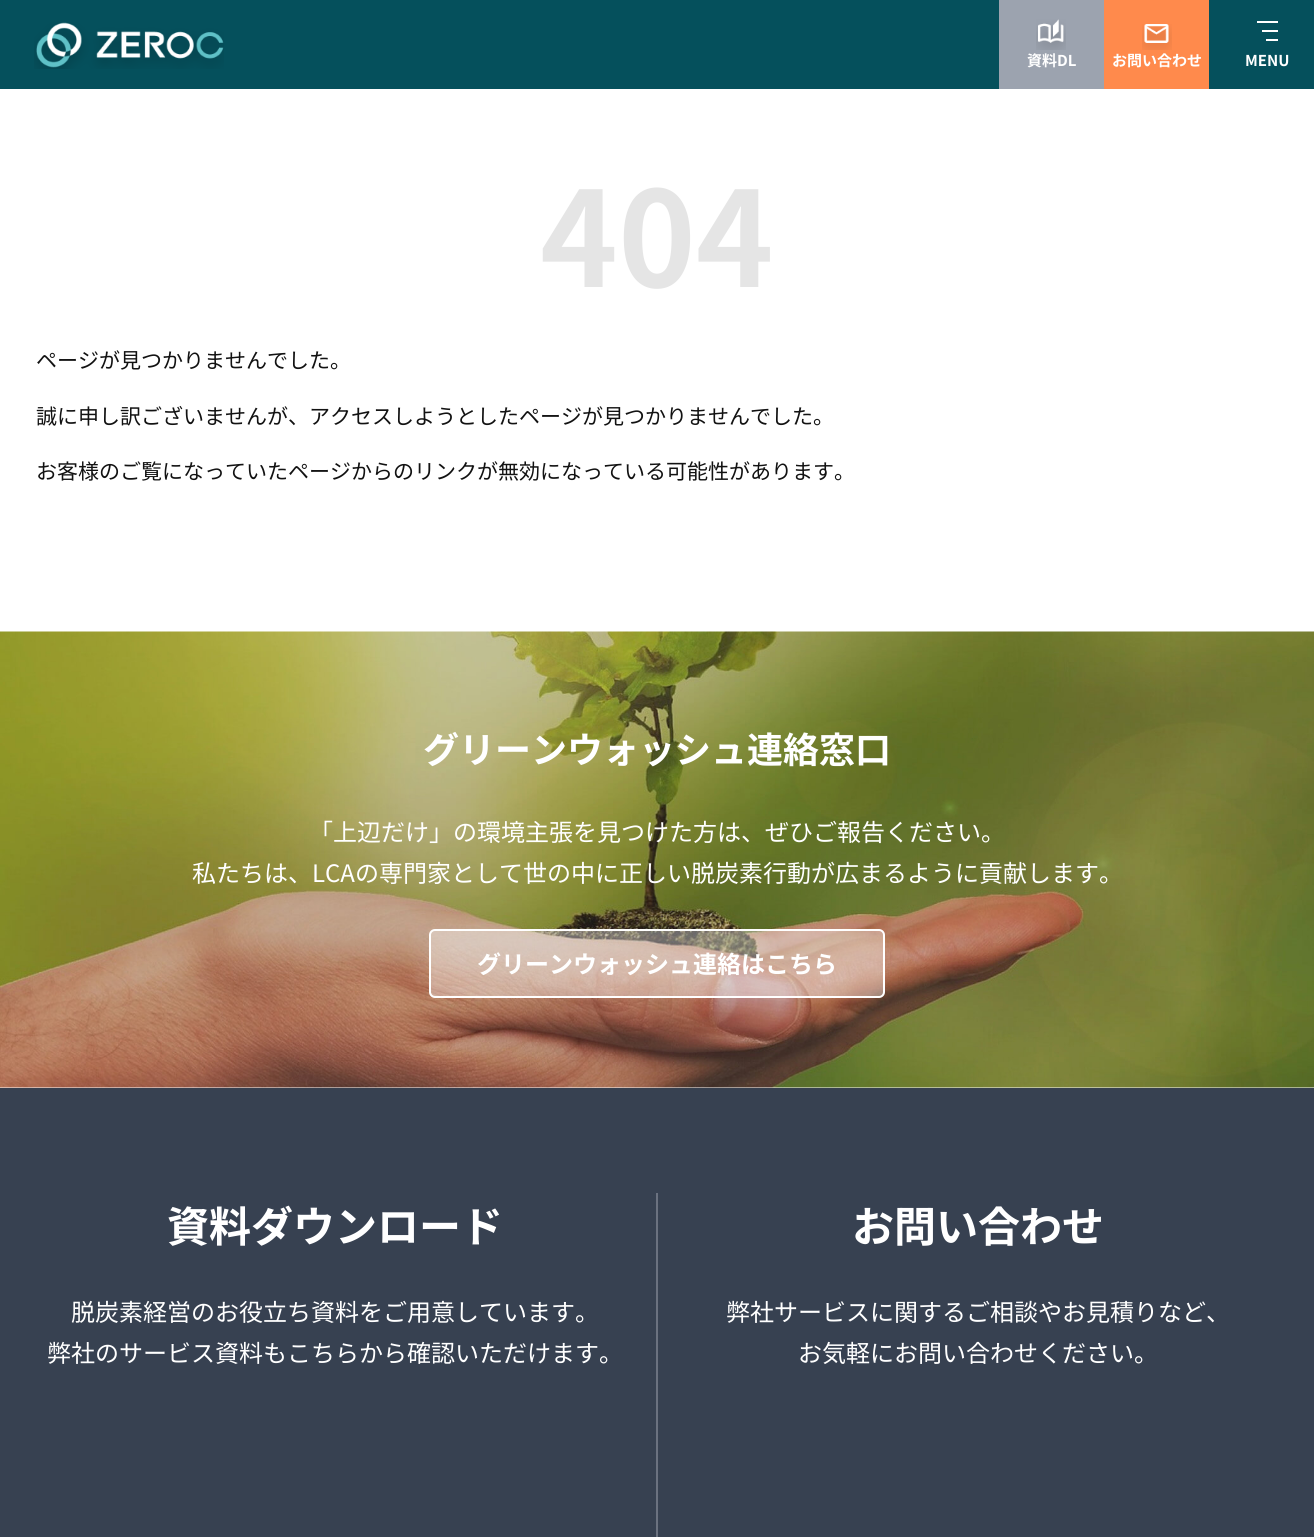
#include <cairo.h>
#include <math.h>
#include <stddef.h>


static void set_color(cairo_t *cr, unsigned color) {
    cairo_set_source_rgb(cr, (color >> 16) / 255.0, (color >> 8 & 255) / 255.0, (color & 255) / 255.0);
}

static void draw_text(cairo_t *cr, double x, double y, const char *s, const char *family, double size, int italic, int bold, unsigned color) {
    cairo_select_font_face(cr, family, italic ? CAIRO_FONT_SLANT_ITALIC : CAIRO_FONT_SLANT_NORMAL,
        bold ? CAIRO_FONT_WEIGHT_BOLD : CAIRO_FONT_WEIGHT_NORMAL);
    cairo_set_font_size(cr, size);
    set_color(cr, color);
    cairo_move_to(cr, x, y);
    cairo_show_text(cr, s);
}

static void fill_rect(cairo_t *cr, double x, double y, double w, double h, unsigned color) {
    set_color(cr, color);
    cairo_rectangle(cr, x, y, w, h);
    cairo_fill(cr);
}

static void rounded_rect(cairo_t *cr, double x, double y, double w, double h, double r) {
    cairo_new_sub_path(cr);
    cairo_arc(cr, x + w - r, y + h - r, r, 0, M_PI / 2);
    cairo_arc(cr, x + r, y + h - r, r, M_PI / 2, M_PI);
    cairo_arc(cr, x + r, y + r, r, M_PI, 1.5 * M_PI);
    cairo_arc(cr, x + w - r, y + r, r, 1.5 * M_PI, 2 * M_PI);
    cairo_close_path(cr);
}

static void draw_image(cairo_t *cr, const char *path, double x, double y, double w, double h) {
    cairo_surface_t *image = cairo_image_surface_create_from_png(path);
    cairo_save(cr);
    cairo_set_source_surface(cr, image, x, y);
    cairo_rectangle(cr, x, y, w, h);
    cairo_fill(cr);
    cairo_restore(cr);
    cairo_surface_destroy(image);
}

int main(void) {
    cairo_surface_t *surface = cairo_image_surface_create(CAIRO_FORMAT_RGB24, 1314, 1537);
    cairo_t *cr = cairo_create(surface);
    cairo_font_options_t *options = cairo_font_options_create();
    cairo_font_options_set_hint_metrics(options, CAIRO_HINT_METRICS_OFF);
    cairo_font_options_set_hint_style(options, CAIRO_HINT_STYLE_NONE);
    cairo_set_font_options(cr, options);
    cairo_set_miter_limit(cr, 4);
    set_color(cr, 0xFFFFFF);
    cairo_paint(cr);
    fill_rect(cr, 0, 0, 1314, 89, 0x05505C);
    draw_image(cr, "assets/img1.png", 34, 22, 190, 47);
    fill_rect(cr, 999, 0, 105, 89, 0x9CA3AF);
    draw_image(cr, "assets/img2.png", 1036, 19, 30, 31);
    draw_text(cr, 1027, 66, "資料DL", "Noto Sans JP", 15, 0, 1, 0xFFFFFF);
    fill_rect(cr, 1104, 0, 105, 89, 0xFF8A4C);
    draw_image(cr, "assets/img3.png", 1142, 24, 30, 26);
    draw_text(cr, 1112, 66, "お問い合わせ", "Noto Sans JP", 15, 0, 1, 0xFFFFFF);
    fill_rect(cr, 1257, 21, 21, 2, 0xFFFFFF);
    fill_rect(cr, 1262, 30, 16, 2, 0xFFFFFF);
    fill_rect(cr, 1266, 39, 12, 2, 0xFFFFFF);
    draw_text(cr, 1245, 66, "MENU", "Noto Sans JP", 15, 0, 1, 0xFFFFFF);
    draw_text(cr, 540, 287, "404", "Noto Sans JP", 132, 0, 1, 0xE5E5E5);
    draw_text(cr, 36, 368, "ページが見つかりませんでした。", "Noto Sans JP", 21, 0, 0, 0x121212);
    draw_text(cr, 36, 424, "誠に申し訳ございませんが、アクセスしようとしたページが見つかりませんでした。", "Noto Sans JP", 21, 0, 0, 0x121212);
    draw_text(cr, 36, 479, "お客様のご覧になっていたページからのリンクが無効になっている可能性があります。", "Noto Sans JP", 21, 0, 0, 0x121212);
    draw_image(cr, "assets/img4.png", 0, 631, 1314, 457);
    draw_text(cr, 423, 763, "グリーンウォッシュ連絡窓口", "Noto Sans JP", 36, 0, 1, 0xFFFFFF);
    draw_text(cr, 309, 841, "「上辺だけ」の環境主張を見つけた方は、ぜひご報告ください。", "Noto Sans JP", 24, 0, 0, 0xFFFFFF);
    draw_text(cr, 192, 882, "私たちは、LCAの専門家として世の中に正しい脱炭素行動が広まるように貢献します。", "Noto Sans JP", 24, 0, 0, 0xFFFFFF);
    cairo_set_source_rgba(cr, 1, 1, 1, 0.36);
    rounded_rect(cr, 430, 930, 454, 67, 5);
    cairo_fill_preserve(cr);
    set_color(cr, 0xFFFFFF);
    cairo_stroke(cr);
    draw_text(cr, 477, 973, "グリーンウォッシュ連絡はこちら", "Noto Sans JP", 24, 0, 1, 0xFFFFFF);
    fill_rect(cr, 0, 1088, 1314, 449, 0x374151);
    fill_rect(cr, 656, 1193, 2, 344, 0x6B7280);
    draw_text(cr, 167, 1242, "資料ダウンロード", "Noto Sans JP", 42, 0, 1, 0xFFFFFF);
    draw_text(cr, 71, 1321, "脱炭素経営のお役立ち資料をご用意しています。", "Noto Sans JP", 24, 0, 0, 0xFFFFFF);
    draw_text(cr, 47, 1362, "弊社のサービス資料もこちらから確認いただけます。", "Noto Sans JP", 24, 0, 0, 0xFFFFFF);
    draw_text(cr, 852, 1242, "お問い合わせ", "Noto Sans JP", 42, 0, 1, 0xFFFFFF);
    draw_text(cr, 726, 1321, "弊社サービスに関するご相談やお見積りなど、", "Noto Sans JP", 24, 0, 0, 0xFFFFFF);
    draw_text(cr, 798, 1362, "お気軽にお問い合わせください。", "Noto Sans JP", 24, 0, 0, 0xFFFFFF);
    cairo_surface_write_to_png(surface, "output.png");
    cairo_font_options_destroy(options);
    cairo_destroy(cr);
    cairo_surface_destroy(surface);
    return 0;
}
